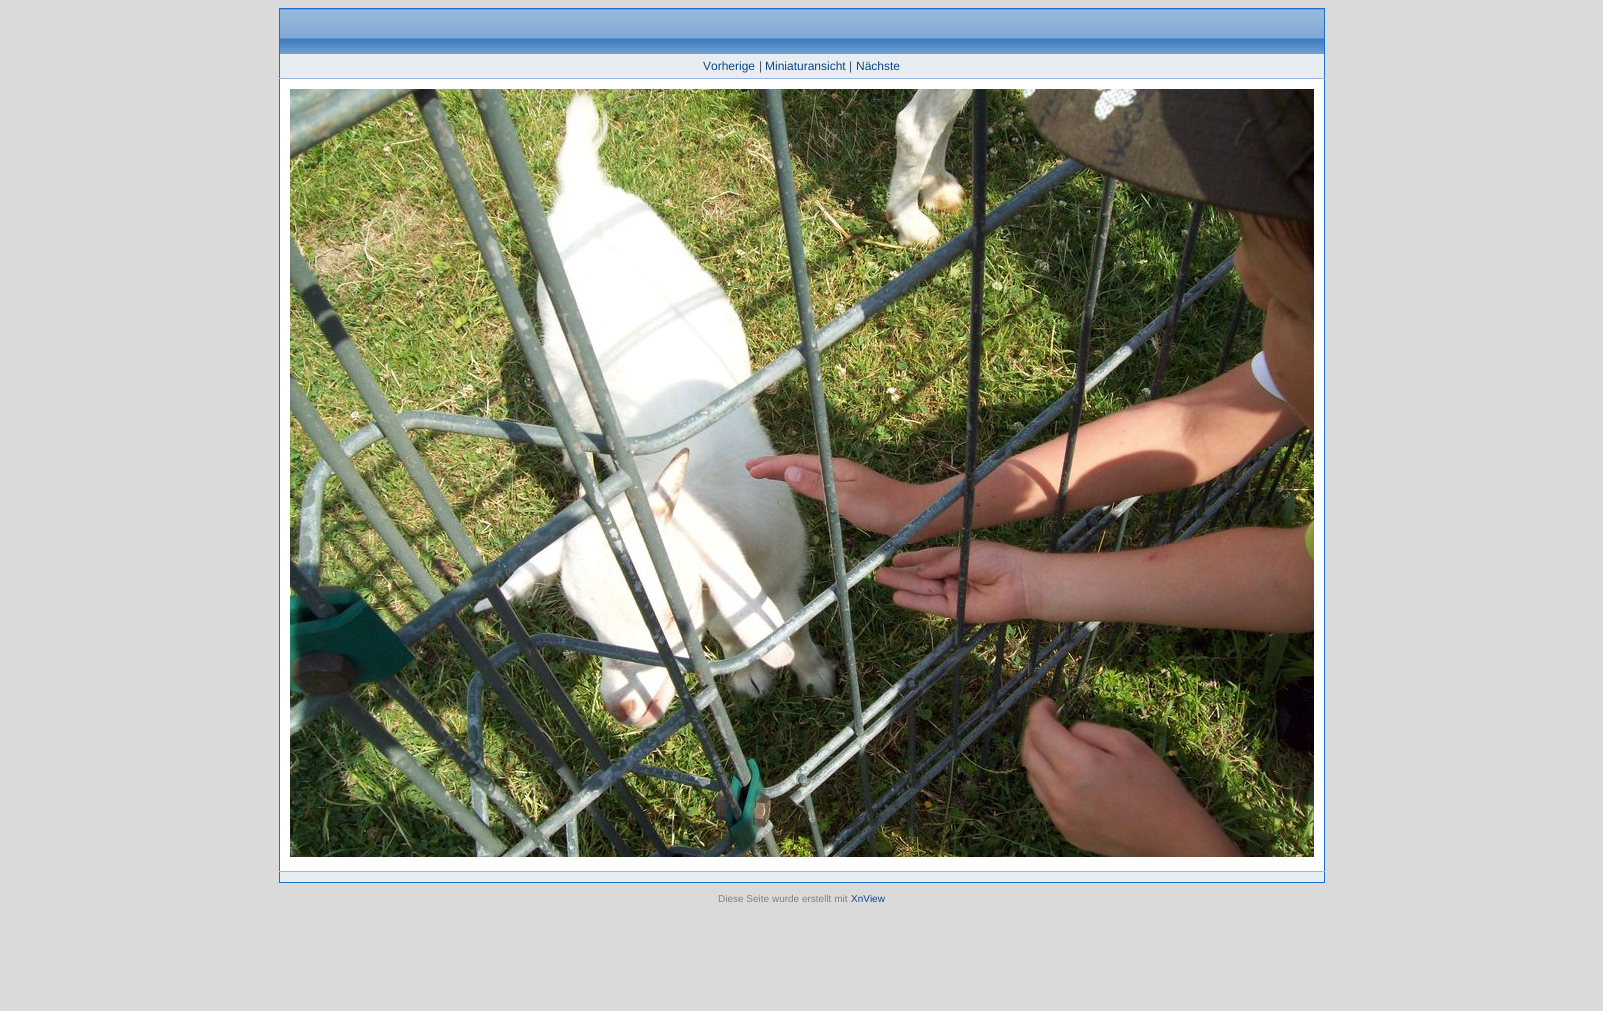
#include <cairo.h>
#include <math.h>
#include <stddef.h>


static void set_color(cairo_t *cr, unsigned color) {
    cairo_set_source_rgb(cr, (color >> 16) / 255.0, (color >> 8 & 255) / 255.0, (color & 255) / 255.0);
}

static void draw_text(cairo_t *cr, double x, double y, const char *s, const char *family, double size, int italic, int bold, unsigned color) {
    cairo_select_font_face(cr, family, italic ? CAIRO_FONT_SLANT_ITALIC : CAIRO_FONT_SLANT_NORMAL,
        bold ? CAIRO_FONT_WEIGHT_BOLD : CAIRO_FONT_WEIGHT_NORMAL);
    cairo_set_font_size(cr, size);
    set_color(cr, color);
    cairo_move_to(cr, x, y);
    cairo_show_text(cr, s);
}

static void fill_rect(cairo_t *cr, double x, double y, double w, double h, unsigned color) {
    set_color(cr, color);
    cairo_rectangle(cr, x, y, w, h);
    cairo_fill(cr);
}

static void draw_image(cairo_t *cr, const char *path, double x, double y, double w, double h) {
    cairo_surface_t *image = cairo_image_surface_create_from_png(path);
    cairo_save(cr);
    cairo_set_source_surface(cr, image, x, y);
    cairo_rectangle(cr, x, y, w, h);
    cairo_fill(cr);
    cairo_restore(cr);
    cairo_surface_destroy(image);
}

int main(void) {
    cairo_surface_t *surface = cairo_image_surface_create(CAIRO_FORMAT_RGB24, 1603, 1011);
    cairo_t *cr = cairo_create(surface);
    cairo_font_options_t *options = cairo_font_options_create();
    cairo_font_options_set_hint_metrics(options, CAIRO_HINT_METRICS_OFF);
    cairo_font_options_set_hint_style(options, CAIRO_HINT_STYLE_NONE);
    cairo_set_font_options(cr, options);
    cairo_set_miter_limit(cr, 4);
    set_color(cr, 0xDADADA);
    cairo_paint(cr);
    fill_rect(cr, 280, 79, 1044, 792, 0xFFFFFF);
    fill_rect(cr, 279, 8, 1046, 1, 0x1B70CF);
    fill_rect(cr, 1324, 8, 1, 875, 0x1B70CF);
    fill_rect(cr, 279, 882, 1046, 1, 0x1B70CF);
    fill_rect(cr, 279, 8, 1, 875, 0x1B70CF);
    draw_image(cr, "assets/img1.png", 280, 9, 1044, 45);
    fill_rect(cr, 280, 54, 1044, 24, 0xE7EDF1);
    fill_rect(cr, 279, 78, 1046, 1, 0x97B9DF);
    draw_text(cr, 703, 70, "Vorherige", "Liberation Sans", 12, 0, 0, 0x104581);
    draw_text(cr, 759, 70, "|", "Liberation Sans", 12, 0, 0, 0x3C4F64);
    draw_text(cr, 765, 70, "Miniaturansicht", "Liberation Sans", 12, 0, 0, 0x104581);
    draw_text(cr, 849, 70, "|", "Liberation Sans", 12, 0, 0, 0x3C4F64);
    draw_text(cr, 856, 70, "Nächste", "Liberation Sans", 12, 0, 0, 0x104581);
    draw_image(cr, "assets/img2.png", 290, 89, 1024, 768);
    fill_rect(cr, 280, 872, 1044, 10, 0xE7EDF1);
    fill_rect(cr, 279, 871, 1046, 1, 0x97B9DF);
    draw_text(cr, 718, 902, "Diese Seite wurde erstellt mit", "Liberation Sans", 10, 0, 0, 0x808080);
    draw_text(cr, 851, 902, "XnView", "Liberation Sans", 10, 0, 0, 0x104581);
    cairo_surface_write_to_png(surface, "output.png");
    cairo_font_options_destroy(options);
    cairo_destroy(cr);
    cairo_surface_destroy(surface);
    return 0;
}
